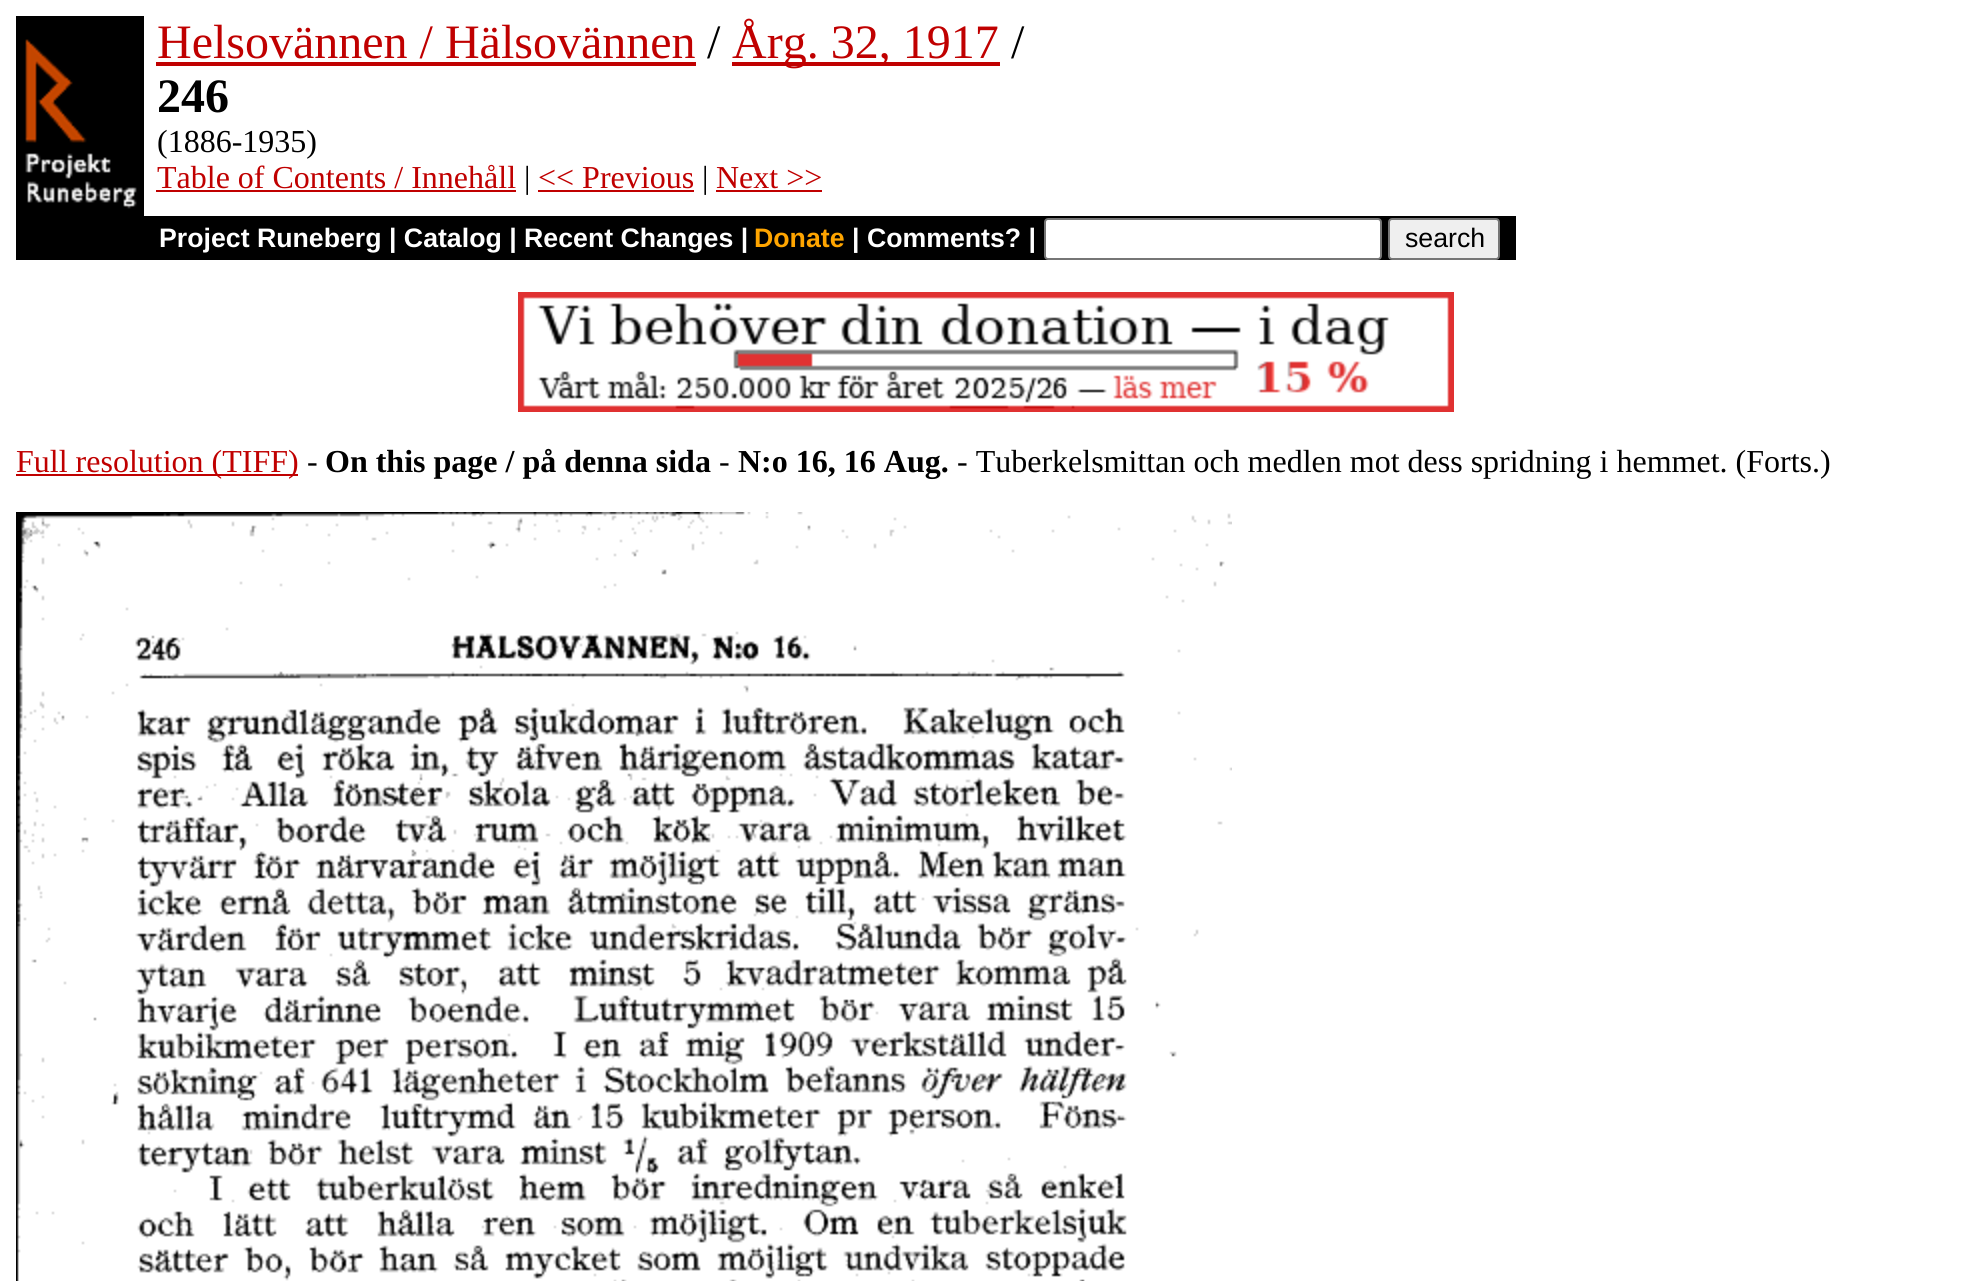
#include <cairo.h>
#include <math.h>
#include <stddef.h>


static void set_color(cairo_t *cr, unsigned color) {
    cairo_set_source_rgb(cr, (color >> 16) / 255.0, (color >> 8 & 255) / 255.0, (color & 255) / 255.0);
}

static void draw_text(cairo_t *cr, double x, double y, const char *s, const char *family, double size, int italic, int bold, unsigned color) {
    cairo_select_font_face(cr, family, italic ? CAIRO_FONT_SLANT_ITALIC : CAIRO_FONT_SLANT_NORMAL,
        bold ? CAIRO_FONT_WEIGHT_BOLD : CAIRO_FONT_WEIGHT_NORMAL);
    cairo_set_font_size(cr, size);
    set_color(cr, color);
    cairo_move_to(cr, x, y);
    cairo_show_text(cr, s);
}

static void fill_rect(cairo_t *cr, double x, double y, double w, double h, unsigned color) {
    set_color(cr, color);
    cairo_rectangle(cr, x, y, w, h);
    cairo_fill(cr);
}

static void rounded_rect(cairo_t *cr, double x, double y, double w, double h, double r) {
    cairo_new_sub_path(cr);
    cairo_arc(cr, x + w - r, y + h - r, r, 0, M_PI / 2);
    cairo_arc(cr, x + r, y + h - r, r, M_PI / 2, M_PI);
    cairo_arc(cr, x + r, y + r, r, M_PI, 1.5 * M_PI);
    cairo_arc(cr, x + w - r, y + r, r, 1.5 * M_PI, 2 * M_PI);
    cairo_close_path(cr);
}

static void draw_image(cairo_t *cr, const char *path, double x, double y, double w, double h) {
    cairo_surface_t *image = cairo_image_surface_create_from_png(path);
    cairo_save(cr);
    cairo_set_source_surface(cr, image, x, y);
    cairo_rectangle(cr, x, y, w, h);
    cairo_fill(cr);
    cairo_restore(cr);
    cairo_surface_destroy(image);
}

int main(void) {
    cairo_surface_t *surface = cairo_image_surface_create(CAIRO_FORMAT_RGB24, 1969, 1281);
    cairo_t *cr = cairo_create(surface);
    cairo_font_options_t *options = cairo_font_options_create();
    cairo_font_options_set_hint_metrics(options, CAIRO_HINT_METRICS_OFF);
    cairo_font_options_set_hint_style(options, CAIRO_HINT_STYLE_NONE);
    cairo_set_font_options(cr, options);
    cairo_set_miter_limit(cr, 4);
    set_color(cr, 0xFFFFFF);
    cairo_paint(cr);
    fill_rect(cr, 16, 16, 128, 244, 0x000000);
    draw_image(cr, "assets/img1.png", 25, 39, 112, 170);
    draw_text(cr, 157, 58, "Helsovännen / Hälsovännen", "Liberation Serif", 48, 0, 0, 0xC00000);
    fill_rect(cr, 156, 62, 540, 4, 0xC00000);
    draw_text(cr, 707, 58, "/", "Liberation Serif", 48, 0, 0, 0x000000);
    fill_rect(cr, 732, 62, 268, 4, 0xC00000);
    draw_text(cr, 732, 58, "Årg. 32, 1917", "Liberation Serif", 48, 0, 0, 0xC00000);
    draw_text(cr, 1011, 58, "/", "Liberation Serif", 48, 0, 0, 0x000000);
    draw_text(cr, 157, 112, "246", "Liberation Serif", 48, 0, 1, 0x000000);
    draw_text(cr, 157, 152, "(1886-1935)", "Liberation Serif", 32, 0, 0, 0x000000);
    draw_text(cr, 157, 188, "Table of Contents / Innehåll", "Liberation Serif", 32, 0, 0, 0xC00000);
    fill_rect(cr, 156, 190, 360, 2, 0xC00000);
    draw_text(cr, 524, 188, "|", "Liberation Serif", 32, 0, 0, 0x000000);
    draw_text(cr, 538, 188, "<< Previous", "Liberation Serif", 32, 0, 0, 0xC00000);
    fill_rect(cr, 538, 190, 156, 2, 0xC00000);
    draw_text(cr, 702, 188, "|", "Liberation Serif", 32, 0, 0, 0x000000);
    draw_text(cr, 716, 188, "Next >>", "Liberation Serif", 32, 0, 0, 0xC00000);
    fill_rect(cr, 716, 190, 106, 2, 0xC00000);
    fill_rect(cr, 144, 216, 1372, 44, 0x000000);
    draw_text(cr, 159, 247, "Project Runeberg | Catalog | Recent Changes |", "Liberation Sans", 26.7, 0, 1, 0xFFFFFF);
    draw_text(cr, 754, 247, "Donate", "Liberation Sans", 26.7, 0, 1, 0xFFA500);
    draw_text(cr, 852, 247, "| Comments? |", "Liberation Sans", 26.7, 0, 1, 0xFFFFFF);
    rounded_rect(cr, 1045, 219, 336, 40, 3);
    cairo_fill_preserve(cr);
    set_color(cr, 0x767676);
    cairo_stroke(cr);
    set_color(cr, 0xEFEFEF);
    rounded_rect(cr, 1389, 219, 110, 40, 3);
    cairo_fill_preserve(cr);
    set_color(cr, 0x767676);
    cairo_stroke(cr);
    draw_text(cr, 1405, 247, "search", "Liberation Sans", 26.7, 0, 0, 0x000000);
    draw_image(cr, "assets/img2.png", 518, 292, 936, 120);
    fill_rect(cr, 16, 474, 282, 2, 0xC00000);
    draw_text(cr, 16, 472, "Full resolution (TIFF)", "Liberation Serif", 32, 0, 0, 0xC00000);
    draw_text(cr, 307, 472, "-", "Liberation Serif", 32, 0, 0, 0x000000);
    draw_text(cr, 325, 472, "On this page / på denna sida", "Liberation Serif", 32, 0, 1, 0x000000);
    draw_text(cr, 719, 472, "-", "Liberation Serif", 32, 0, 0, 0x000000);
    draw_text(cr, 738, 472, "N:o 16, 16 Aug.", "Liberation Serif", 32, 0, 1, 0x000000);
    draw_text(cr, 957, 472, "- Tuberkelsmittan och medlen mot dess spridning i hemmet. (Forts.)", "Liberation Serif", 32, 0, 0, 0x000000);
    draw_image(cr, "assets/img3.png", 16, 512, 1216, 769);
    cairo_surface_write_to_png(surface, "output.png");
    cairo_font_options_destroy(options);
    cairo_destroy(cr);
    cairo_surface_destroy(surface);
    return 0;
}
